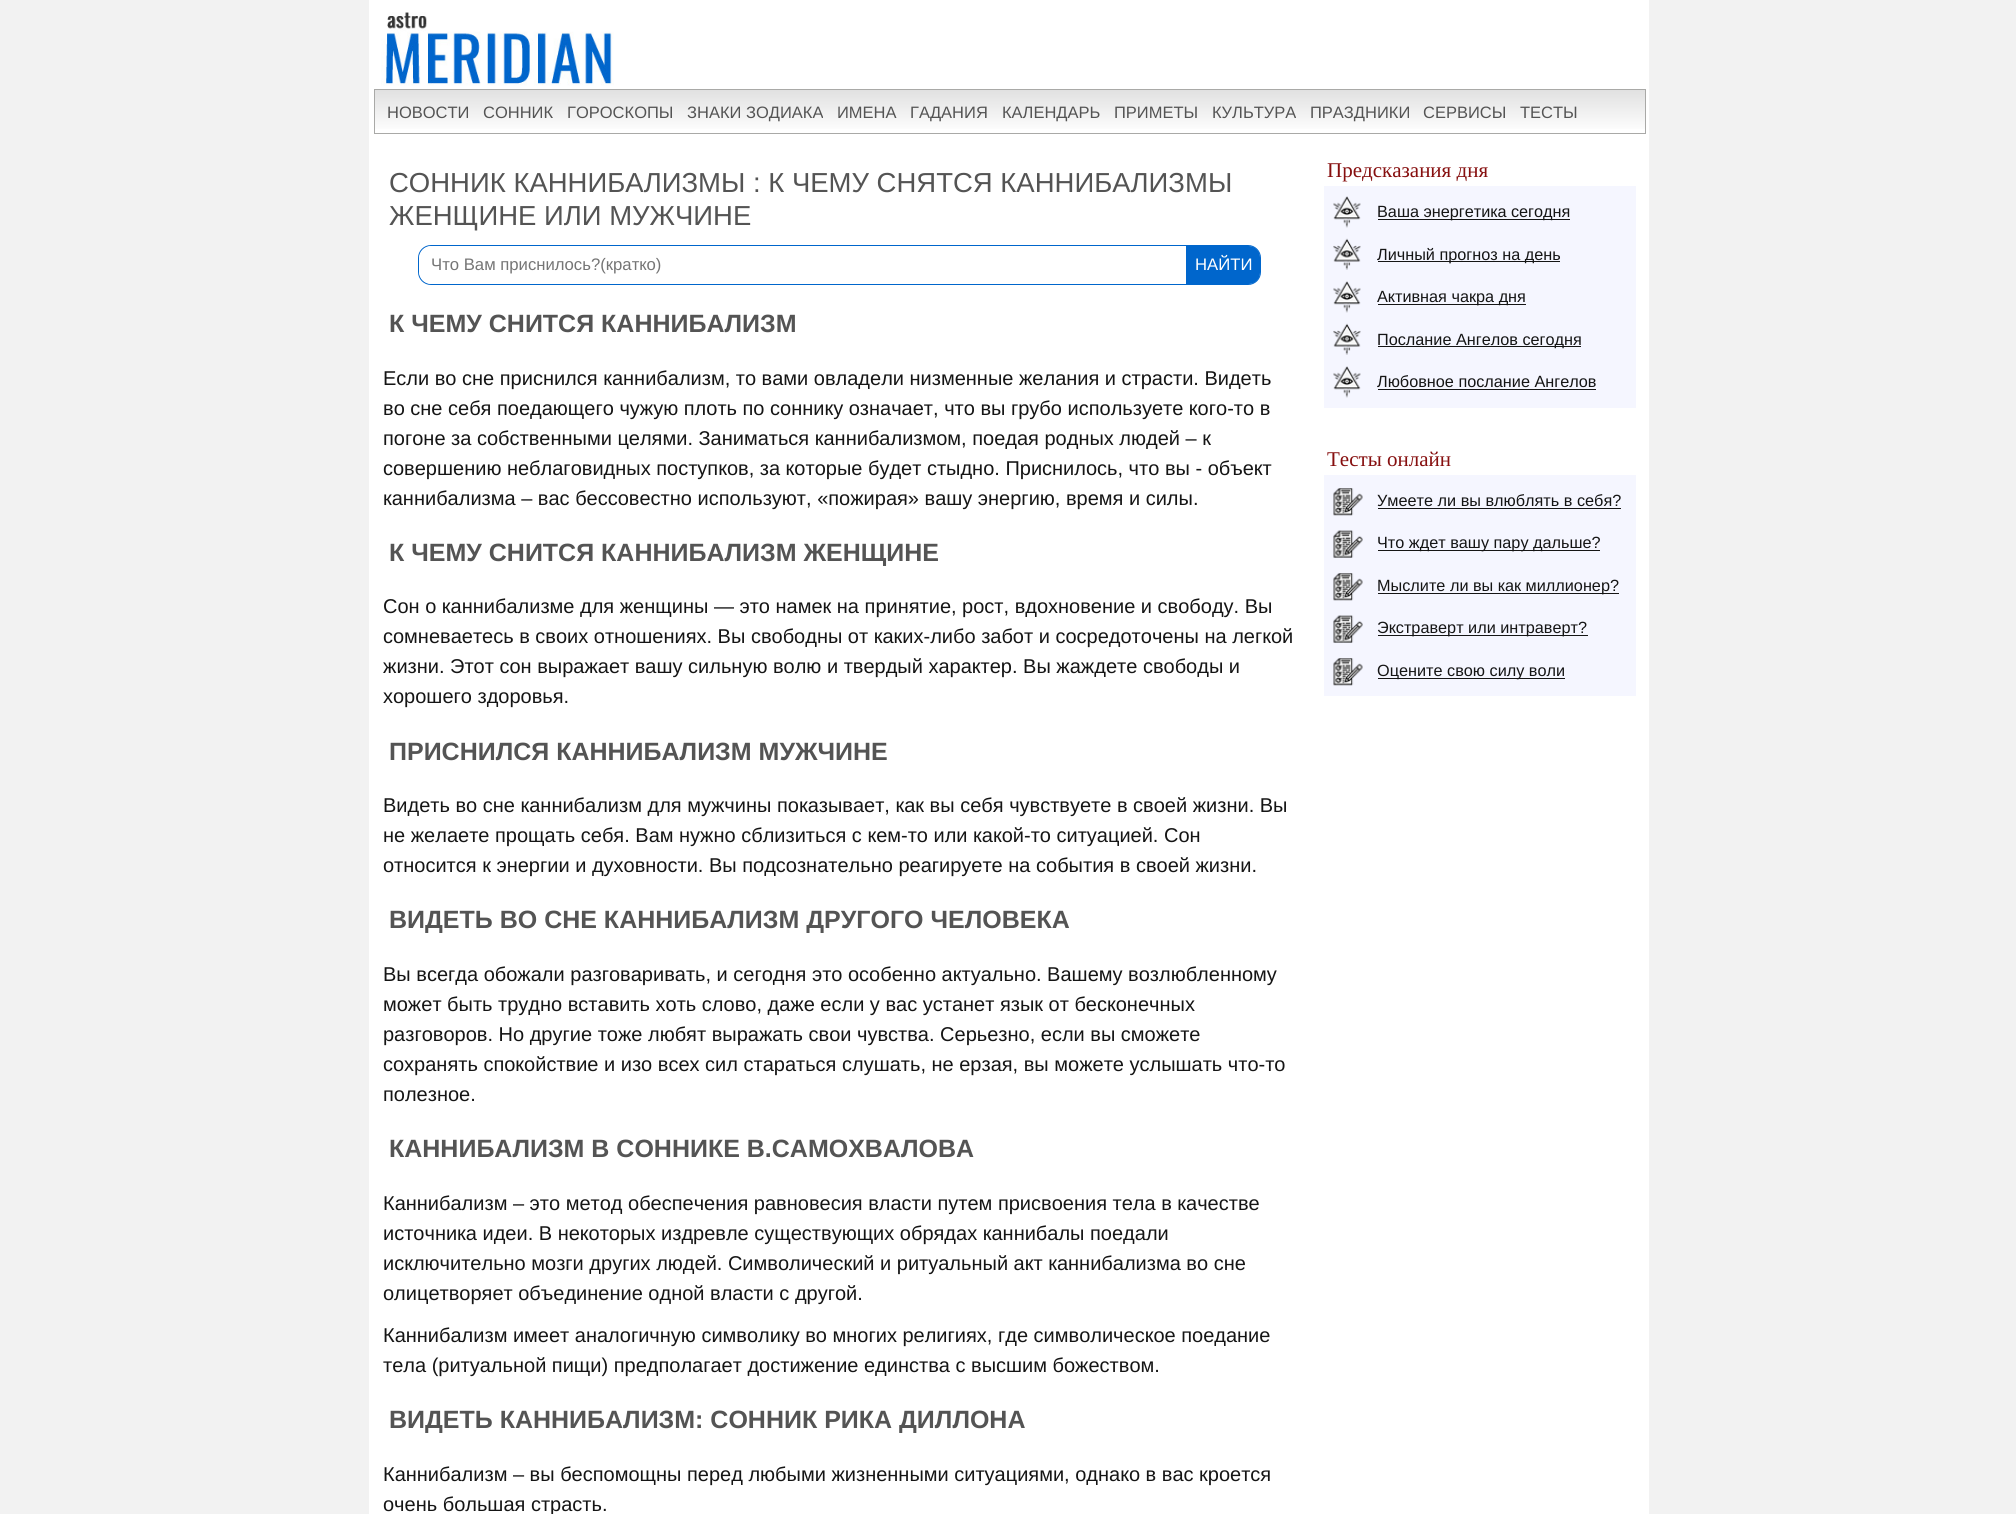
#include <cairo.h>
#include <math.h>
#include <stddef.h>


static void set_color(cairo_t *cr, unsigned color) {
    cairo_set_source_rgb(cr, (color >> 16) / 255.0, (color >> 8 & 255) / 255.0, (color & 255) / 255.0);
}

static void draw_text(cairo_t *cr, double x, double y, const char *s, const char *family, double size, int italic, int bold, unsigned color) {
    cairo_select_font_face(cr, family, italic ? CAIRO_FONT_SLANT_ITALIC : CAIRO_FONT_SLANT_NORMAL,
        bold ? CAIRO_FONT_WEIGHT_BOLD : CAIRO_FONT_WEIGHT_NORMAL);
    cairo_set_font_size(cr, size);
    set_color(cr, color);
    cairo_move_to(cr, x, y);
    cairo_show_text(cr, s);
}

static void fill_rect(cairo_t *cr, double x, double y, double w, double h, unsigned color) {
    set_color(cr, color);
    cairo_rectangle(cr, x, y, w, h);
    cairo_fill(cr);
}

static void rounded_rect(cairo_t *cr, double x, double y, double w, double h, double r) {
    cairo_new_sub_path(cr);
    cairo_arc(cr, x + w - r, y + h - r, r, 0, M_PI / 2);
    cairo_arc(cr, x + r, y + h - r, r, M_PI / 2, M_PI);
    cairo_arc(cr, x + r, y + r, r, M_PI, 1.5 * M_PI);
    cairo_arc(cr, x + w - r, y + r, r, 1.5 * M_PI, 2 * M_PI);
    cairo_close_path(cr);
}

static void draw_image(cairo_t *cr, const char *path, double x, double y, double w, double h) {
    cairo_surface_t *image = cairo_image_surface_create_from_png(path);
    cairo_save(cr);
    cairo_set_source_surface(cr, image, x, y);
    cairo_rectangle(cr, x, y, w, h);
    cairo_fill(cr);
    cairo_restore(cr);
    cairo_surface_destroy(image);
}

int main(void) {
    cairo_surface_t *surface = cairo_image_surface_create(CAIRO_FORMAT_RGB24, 2016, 1514);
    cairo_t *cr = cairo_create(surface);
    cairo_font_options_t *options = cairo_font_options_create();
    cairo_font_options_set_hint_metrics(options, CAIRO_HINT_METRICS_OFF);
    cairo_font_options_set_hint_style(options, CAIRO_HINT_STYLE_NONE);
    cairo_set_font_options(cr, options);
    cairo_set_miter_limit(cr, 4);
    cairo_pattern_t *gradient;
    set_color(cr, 0xF2F2F2);
    cairo_paint(cr);
    fill_rect(cr, 369, 0, 1280, 1514, 0xFFFFFF);
    draw_image(cr, "assets/img1.png", 381, 12, 233, 74);
    gradient = cairo_pattern_create_linear(1010, 90, 1010, 133);
    cairo_pattern_add_color_stop_rgba(gradient, 0, 0.882, 0.882, 0.882, 1);
    cairo_pattern_add_color_stop_rgba(gradient, 1, 1, 1, 1, 1);
    cairo_set_source(cr, gradient);
    cairo_pattern_destroy(gradient);
    cairo_rectangle(cr, 375, 90, 1270, 39);
    cairo_fill(cr);
    cairo_rectangle(cr, 374.5, 89.5, 1271, 44);
    set_color(cr, 0xA9A9A7);
    cairo_set_line_width(cr, 1);
    cairo_stroke(cr);
    draw_text(cr, 387, 118, "НОВОСТИ", "Liberation Sans", 16.5, 0, 0, 0x545454);
    draw_text(cr, 483, 118, "СОННИК", "Liberation Sans", 16.5, 0, 0, 0x545454);
    draw_text(cr, 567, 118, "ГОРОСКОПЫ", "Liberation Sans", 16.5, 0, 0, 0x545454);
    draw_text(cr, 687, 118, "ЗНАКИ ЗОДИАКА", "Liberation Sans", 16.5, 0, 0, 0x545454);
    draw_text(cr, 837, 118, "ИМЕНА", "Liberation Sans", 16.5, 0, 0, 0x545454);
    draw_text(cr, 910, 118, "ГАДАНИЯ", "Liberation Sans", 16.5, 0, 0, 0x545454);
    draw_text(cr, 1002, 118, "КАЛЕНДАРЬ", "Liberation Sans", 16.5, 0, 0, 0x545454);
    draw_text(cr, 1114, 118, "ПРИМЕТЫ", "Liberation Sans", 16.5, 0, 0, 0x545454);
    draw_text(cr, 1212, 118, "КУЛЬТУРА", "Liberation Sans", 16.5, 0, 0, 0x545454);
    draw_text(cr, 1310, 118, "ПРАЗДНИКИ", "Liberation Sans", 16.5, 0, 0, 0x545454);
    draw_text(cr, 1423, 118, "СЕРВИСЫ", "Liberation Sans", 16.5, 0, 0, 0x545454);
    draw_text(cr, 1520, 118, "ТЕСТЫ", "Liberation Sans", 16.5, 0, 0, 0x545454);
    draw_text(cr, 389, 192, "СОННИК КАННИБАЛИЗМЫ : К ЧЕМУ СНЯТСЯ КАННИБАЛИЗМЫ", "Liberation Sans", 27.5, 0, 0, 0x545454);
    draw_text(cr, 389, 225, "ЖЕНЩИНЕ ИЛИ МУЖЧИНЕ", "Liberation Sans", 27.5, 0, 0, 0x545454);
    rounded_rect(cr, 418.5, 245.5, 842, 39, 12.5);
    set_color(cr, 0x0066CC);
    cairo_stroke(cr);
    set_color(cr, 0xFFFFFF);
    cairo_new_path(cr);
    cairo_move_to(cr, 432, 246);
    cairo_line_to(cr, 1186, 246);
    cairo_line_to(cr, 1186, 284);
    cairo_line_to(cr, 432, 284);
    cairo_curve_to(cr, 425, 284, 419, 278, 419, 271);
    cairo_line_to(cr, 419, 259);
    cairo_curve_to(cr, 419, 252, 425, 246, 432, 246);
    cairo_close_path(cr);
    cairo_fill(cr);
    draw_text(cr, 431, 270, "Что Вам приснилось?(кратко)", "Liberation Sans", 16.7, 0, 0, 0x757575);
    set_color(cr, 0x0066CC);
    cairo_new_path(cr);
    cairo_move_to(cr, 1186, 246);
    cairo_line_to(cr, 1249, 246);
    cairo_curve_to(cr, 1255, 246, 1260, 251, 1260, 257);
    cairo_line_to(cr, 1260, 273);
    cairo_curve_to(cr, 1260, 279, 1255, 284, 1249, 284);
    cairo_line_to(cr, 1186, 284);
    cairo_close_path(cr);
    cairo_fill(cr);
    draw_text(cr, 1195, 270, "НАЙТИ", "Liberation Sans", 16.7, 0, 0, 0xFFFFFF);
    draw_text(cr, 389, 332, "К ЧЕМУ СНИТСЯ КАННИБАЛИЗМ", "Liberation Sans", 25, 0, 1, 0x545454);
    draw_text(cr, 383, 385, "Если во сне приснился каннибализм, то вами овладели низменные желания и страсти. Видеть", "Liberation Sans", 20, 0, 0, 0x151515);
    draw_text(cr, 383, 415, "во сне себя поедающего чужую плоть по соннику означает, что вы грубо используете кого-то в", "Liberation Sans", 20, 0, 0, 0x151515);
    draw_text(cr, 383, 445, "погоне за собственными целями. Заниматься каннибализмом, поедая родных людей – к", "Liberation Sans", 20, 0, 0, 0x151515);
    draw_text(cr, 383, 475, "совершению неблаговидных поступков, за которые будет стыдно. Приснилось, что вы - объект", "Liberation Sans", 20, 0, 0, 0x151515);
    draw_text(cr, 383, 505, "каннибализма – вас бессовестно используют, «пожирая» вашу энергию, время и силы.", "Liberation Sans", 20, 0, 0, 0x151515);
    draw_text(cr, 389, 561, "К ЧЕМУ СНИТСЯ КАННИБАЛИЗМ ЖЕНЩИНЕ", "Liberation Sans", 25, 0, 1, 0x545454);
    draw_text(cr, 383, 613, "Сон о каннибализме для женщины — это намек на принятие, рост, вдохновение и свободу. Вы", "Liberation Sans", 20, 0, 0, 0x151515);
    draw_text(cr, 383, 643, "сомневаетесь в своих отношениях. Вы свободны от каких-либо забот и сосредоточены на легкой", "Liberation Sans", 20, 0, 0, 0x151515);
    draw_text(cr, 383, 673, "жизни. Этот сон выражает вашу сильную волю и твердый характер. Вы жаждете свободы и", "Liberation Sans", 20, 0, 0, 0x151515);
    draw_text(cr, 383, 703, "хорошего здоровья.", "Liberation Sans", 20, 0, 0, 0x151515);
    draw_text(cr, 389, 760, "ПРИСНИЛСЯ КАННИБАЛИЗМ МУЖЧИНЕ", "Liberation Sans", 25, 0, 1, 0x545454);
    draw_text(cr, 383, 812, "Видеть во сне каннибализм для мужчины показывает, как вы себя чувствуете в своей жизни. Вы", "Liberation Sans", 20, 0, 0, 0x151515);
    draw_text(cr, 383, 842, "не желаете прощать себя. Вам нужно сблизиться с кем-то или какой-то ситуацией. Сон", "Liberation Sans", 20, 0, 0, 0x151515);
    draw_text(cr, 383, 872, "относится к энергии и духовности. Вы подсознательно реагируете на события в своей жизни.", "Liberation Sans", 20, 0, 0, 0x151515);
    draw_text(cr, 389, 928, "ВИДЕТЬ ВО СНЕ КАННИБАЛИЗМ ДРУГОГО ЧЕЛОВЕКА", "Liberation Sans", 25, 0, 1, 0x545454);
    draw_text(cr, 383, 981, "Вы всегда обожали разговаривать, и сегодня это особенно актуально. Вашему возлюбленному", "Liberation Sans", 20, 0, 0, 0x151515);
    draw_text(cr, 383, 1011, "может быть трудно вставить хоть слово, даже если у вас устанет язык от бесконечных", "Liberation Sans", 20, 0, 0, 0x151515);
    draw_text(cr, 383, 1041, "разговоров. Но другие тоже любят выражать свои чувства. Серьезно, если вы сможете", "Liberation Sans", 20, 0, 0, 0x151515);
    draw_text(cr, 383, 1071, "сохранять спокойствие и изо всех сил стараться слушать, не ерзая, вы можете услышать что-то", "Liberation Sans", 20, 0, 0, 0x151515);
    draw_text(cr, 383, 1101, "полезное.", "Liberation Sans", 20, 0, 0, 0x151515);
    draw_text(cr, 389, 1157, "КАННИБАЛИЗМ В СОННИКЕ В.САМОХВАЛОВА", "Liberation Sans", 25, 0, 1, 0x545454);
    draw_text(cr, 383, 1210, "Каннибализм – это метод обеспечения равновесия власти путем присвоения тела в качестве", "Liberation Sans", 20, 0, 0, 0x151515);
    draw_text(cr, 383, 1240, "источника идеи. В некоторых издревле существующих обрядах каннибалы поедали", "Liberation Sans", 20, 0, 0, 0x151515);
    draw_text(cr, 383, 1270, "исключительно мозги других людей. Символический и ритуальный акт каннибализма во сне", "Liberation Sans", 20, 0, 0, 0x151515);
    draw_text(cr, 383, 1300, "олицетворяет объединение одной власти с другой.", "Liberation Sans", 20, 0, 0, 0x151515);
    draw_text(cr, 383, 1342, "Каннибализм имеет аналогичную символику во многих религиях, где символическое поедание", "Liberation Sans", 20, 0, 0, 0x151515);
    draw_text(cr, 383, 1372, "тела (ритуальной пищи) предполагает достижение единства с высшим божеством.", "Liberation Sans", 20, 0, 0, 0x151515);
    draw_text(cr, 389, 1428, "ВИДЕТЬ КАННИБАЛИЗМ: СОННИК РИКА ДИЛЛОНА", "Liberation Sans", 25, 0, 1, 0x545454);
    draw_text(cr, 383, 1481, "Каннибализм – вы беспомощны перед любыми жизненными ситуациями, однако в вас кроется", "Liberation Sans", 20, 0, 0, 0x151515);
    draw_text(cr, 383, 1511, "очень большая страсть.", "Liberation Sans", 20, 0, 0, 0x151515);
    draw_text(cr, 1327, 177, "Предсказания дня", "Liberation Serif", 21, 0, 0, 0x860F0F);
    fill_rect(cr, 1324, 186, 312, 222, 0xF5F6FF);
    draw_image(cr, "assets/img2.png", 1333, 196, 28, 32);
    fill_rect(cr, 1378, 219, 192, 1, 0x151515);
    draw_text(cr, 1377, 217, "Ваша энергетика сегодня", "Liberation Sans", 16.25, 0, 0, 0x151515);
    draw_image(cr, "assets/img3.png", 1333, 238, 28, 32);
    fill_rect(cr, 1378, 261, 182, 1, 0x151515);
    draw_text(cr, 1377, 260, "Личный прогноз на день", "Liberation Sans", 16.25, 0, 0, 0x151515);
    draw_image(cr, "assets/img4.png", 1333, 281, 28, 32);
    fill_rect(cr, 1378, 304, 148, 1, 0x151515);
    draw_text(cr, 1377, 302, "Активная чакра дня", "Liberation Sans", 16.25, 0, 0, 0x151515);
    draw_image(cr, "assets/img3.png", 1333, 323, 28, 32);
    fill_rect(cr, 1378, 346, 203, 1, 0x151515);
    draw_text(cr, 1377, 345, "Послание Ангелов сегодня", "Liberation Sans", 16.25, 0, 0, 0x151515);
    draw_image(cr, "assets/img2.png", 1333, 366, 28, 32);
    draw_text(cr, 1377, 387, "Любовное послание Ангелов", "Liberation Sans", 16.25, 0, 0, 0x151515);
    fill_rect(cr, 1378, 389, 218, 1, 0x151515);
    draw_text(cr, 1327, 466, "Тесты онлайн", "Liberation Serif", 21, 0, 0, 0x860F0F);
    fill_rect(cr, 1324, 475, 312, 221, 0xF5F6FF);
    draw_image(cr, "assets/img5.png", 1333, 488, 30, 28);
    draw_text(cr, 1377, 506, "Умеете ли вы влюблять в себя?", "Liberation Sans", 16.25, 0, 0, 0x151515);
    fill_rect(cr, 1378, 508, 243, 1, 0x151515);
    draw_image(cr, "assets/img6.png", 1333, 530, 30, 28);
    fill_rect(cr, 1378, 550, 222, 1, 0x151515);
    draw_text(cr, 1377, 548, "Что ждет вашу пару дальше?", "Liberation Sans", 16.25, 0, 0, 0x151515);
    draw_image(cr, "assets/img5.png", 1333, 573, 30, 28);
    fill_rect(cr, 1378, 593, 241, 1, 0x151515);
    draw_text(cr, 1377, 591, "Мыслите ли вы как миллионер?", "Liberation Sans", 16.25, 0, 0, 0x151515);
    draw_image(cr, "assets/img6.png", 1333, 615, 30, 28);
    fill_rect(cr, 1378, 635, 210, 1, 0x151515);
    draw_text(cr, 1377, 633, "Экстраверт или интраверт?", "Liberation Sans", 16.25, 0, 0, 0x151515);
    draw_image(cr, "assets/img5.png", 1333, 658, 30, 28);
    fill_rect(cr, 1378, 678, 187, 1, 0x151515);
    draw_text(cr, 1377, 676, "Оцените свою силу воли", "Liberation Sans", 16.25, 0, 0, 0x151515);
    cairo_surface_write_to_png(surface, "output.png");
    cairo_font_options_destroy(options);
    cairo_destroy(cr);
    cairo_surface_destroy(surface);
    return 0;
}
